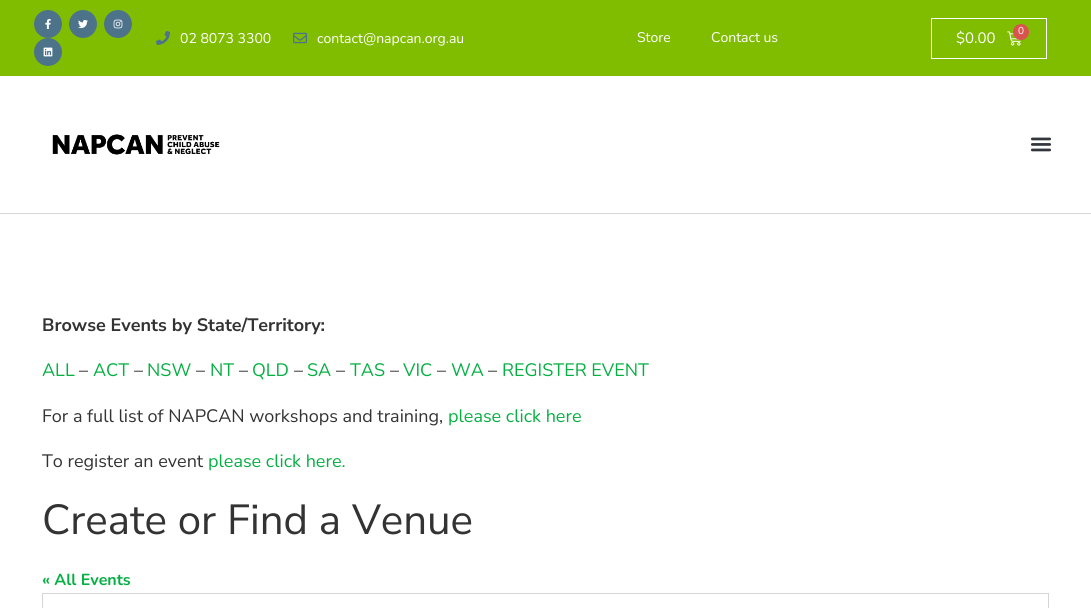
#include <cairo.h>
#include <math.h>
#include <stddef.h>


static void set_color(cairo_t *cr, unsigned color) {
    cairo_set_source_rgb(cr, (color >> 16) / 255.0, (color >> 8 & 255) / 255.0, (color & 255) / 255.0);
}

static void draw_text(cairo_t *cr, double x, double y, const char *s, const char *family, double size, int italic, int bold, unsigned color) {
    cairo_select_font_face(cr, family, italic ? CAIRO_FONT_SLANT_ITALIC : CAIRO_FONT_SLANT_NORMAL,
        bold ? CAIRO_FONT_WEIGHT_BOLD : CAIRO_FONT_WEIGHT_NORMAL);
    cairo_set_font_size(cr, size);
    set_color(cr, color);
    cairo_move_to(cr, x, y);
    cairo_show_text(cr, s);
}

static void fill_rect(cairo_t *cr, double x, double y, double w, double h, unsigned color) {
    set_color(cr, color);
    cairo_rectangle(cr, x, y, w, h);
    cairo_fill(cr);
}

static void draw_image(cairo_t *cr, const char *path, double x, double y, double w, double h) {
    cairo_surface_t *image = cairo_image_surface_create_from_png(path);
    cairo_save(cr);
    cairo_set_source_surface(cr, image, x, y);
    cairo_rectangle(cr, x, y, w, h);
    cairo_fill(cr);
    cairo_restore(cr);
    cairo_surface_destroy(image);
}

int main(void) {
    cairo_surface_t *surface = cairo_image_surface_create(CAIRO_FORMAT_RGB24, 1091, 608);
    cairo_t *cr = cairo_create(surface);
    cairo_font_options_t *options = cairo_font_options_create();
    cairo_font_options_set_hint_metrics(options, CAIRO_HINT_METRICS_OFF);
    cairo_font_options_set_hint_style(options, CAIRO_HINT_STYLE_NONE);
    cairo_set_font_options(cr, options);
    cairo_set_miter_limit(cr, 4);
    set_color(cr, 0xFFFFFF);
    cairo_paint(cr);
    fill_rect(cr, 0, 0, 1091, 76, 0x80BD01);
    set_color(cr, 0x4D738A);
    cairo_arc(cr, 48, 24, 14, 0, 2 * M_PI);
    cairo_fill(cr);
    draw_image(cr, "assets/img1.png", 45, 19, 6, 10);
    cairo_arc(cr, 83, 24, 14, 0, 2 * M_PI);
    cairo_fill(cr);
    draw_image(cr, "assets/img2.png", 78, 20, 10, 9);
    cairo_arc(cr, 118, 24, 14, 0, 2 * M_PI);
    cairo_fill(cr);
    draw_image(cr, "assets/img3.png", 113, 19, 10, 10);
    cairo_arc(cr, 48, 52, 14, 0, 2 * M_PI);
    cairo_fill(cr);
    draw_image(cr, "assets/img4.png", 43, 47, 10, 10);
    draw_image(cr, "assets/img5.png", 156, 31, 14, 14);
    draw_text(cr, 180, 43, "02 8073 3300", "Nunito", 14, 0, 0, 0xFFFFFF);
    draw_image(cr, "assets/img6.png", 293, 32, 14, 12);
    draw_text(cr, 317, 43, "contact@napcan.org.au", "Nunito", 14, 0, 0, 0xFFFFFF);
    draw_text(cr, 637, 42, "Store", "Nunito", 14, 0, 0, 0xFFFFFF);
    draw_text(cr, 711, 42, "Contact us", "Nunito", 14, 0, 0, 0xFFFFFF);
    cairo_rectangle(cr, 931.5, 18.5, 115, 40);
    cairo_set_line_width(cr, 1);
    cairo_stroke(cr);
    draw_text(cr, 956, 43, "$0.00", "Nunito", 15, 0, 0, 0xFFFFFF);
    draw_image(cr, "assets/img7.png", 1007, 31, 14, 15);
    set_color(cr, 0xD9534F);
    cairo_arc(cr, 1021, 32, 8, 0, 2 * M_PI);
    cairo_fill(cr);
    draw_text(cr, 1018, 34, "0", "Nunito", 10, 0, 0, 0xFFFFFF);
    fill_rect(cr, 0, 213, 1091, 1, 0xD8D8D8);
    draw_image(cr, "assets/img8.png", 52, 134, 168, 21);
    draw_image(cr, "assets/img9.png", 1030, 137, 22, 15);
    draw_text(cr, 42, 331, "Browse Events by State/Territory:", "Nunito Sans", 18, 0, 1, 0x333333);
    draw_text(cr, 42, 376, "ALL", "Nunito", 18, 0, 0, 0x06AF43);
    draw_text(cr, 79, 376, "–", "Nunito Sans", 18, 0, 0, 0x333333);
    draw_text(cr, 93, 376, "ACT", "Nunito", 18, 0, 0, 0x06AF43);
    draw_text(cr, 134, 376, "–", "Nunito Sans", 18, 0, 0, 0x333333);
    draw_text(cr, 147, 376, "NSW", "Nunito", 18, 0, 0, 0x06AF43);
    draw_text(cr, 196, 376, "–", "Nunito Sans", 18, 0, 0, 0x333333);
    draw_text(cr, 210, 376, "NT", "Nunito", 18, 0, 0, 0x06AF43);
    draw_text(cr, 239, 376, "–", "Nunito Sans", 18, 0, 0, 0x333333);
    draw_text(cr, 252, 376, "QLD", "Nunito", 18, 0, 0, 0x06AF43);
    draw_text(cr, 294, 376, "–", "Nunito Sans", 18, 0, 0, 0x333333);
    draw_text(cr, 307, 376, "SA", "Nunito", 18, 0, 0, 0x06AF43);
    draw_text(cr, 336, 376, "–", "Nunito Sans", 18, 0, 0, 0x333333);
    draw_text(cr, 350, 376, "TAS", "Nunito", 18, 0, 0, 0x06AF43);
    draw_text(cr, 390, 376, "–", "Nunito Sans", 18, 0, 0, 0x333333);
    draw_text(cr, 403, 376, "VIC", "Nunito", 18, 0, 0, 0x06AF43);
    draw_text(cr, 437, 376, "–", "Nunito Sans", 18, 0, 0, 0x333333);
    draw_text(cr, 451, 376, "WA", "Nunito", 18, 0, 0, 0x06AF43);
    draw_text(cr, 488, 376, "–", "Nunito Sans", 18, 0, 0, 0x333333);
    draw_text(cr, 502, 376, "REGISTER EVENT", "Nunito", 18, 0, 0, 0x06AF43);
    draw_text(cr, 42, 422, "For a full list of NAPCAN workshops and training,", "Nunito Sans", 18, 0, 0, 0x333333);
    draw_text(cr, 448, 422, "please click here", "Nunito", 18, 0, 0, 0x06AF43);
    draw_text(cr, 42, 467, "To register an event", "Nunito Sans", 18, 0, 0, 0x333333);
    draw_text(cr, 208, 467, "please click here.", "Nunito", 18, 0, 0, 0x06AF43);
    draw_text(cr, 42, 534, "Create or Find a Venue", "Nunito Sans", 42, 0, 0, 0x333333);
    draw_text(cr, 42, 585, "« All Events", "Nunito", 16, 0, 1, 0x06AF43);
    cairo_rectangle(cr, 42.5, 593.5, 1006, 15);
    set_color(cr, 0xD5D5D5);
    cairo_stroke(cr);
    cairo_surface_write_to_png(surface, "output.png");
    cairo_font_options_destroy(options);
    cairo_destroy(cr);
    cairo_surface_destroy(surface);
    return 0;
}
